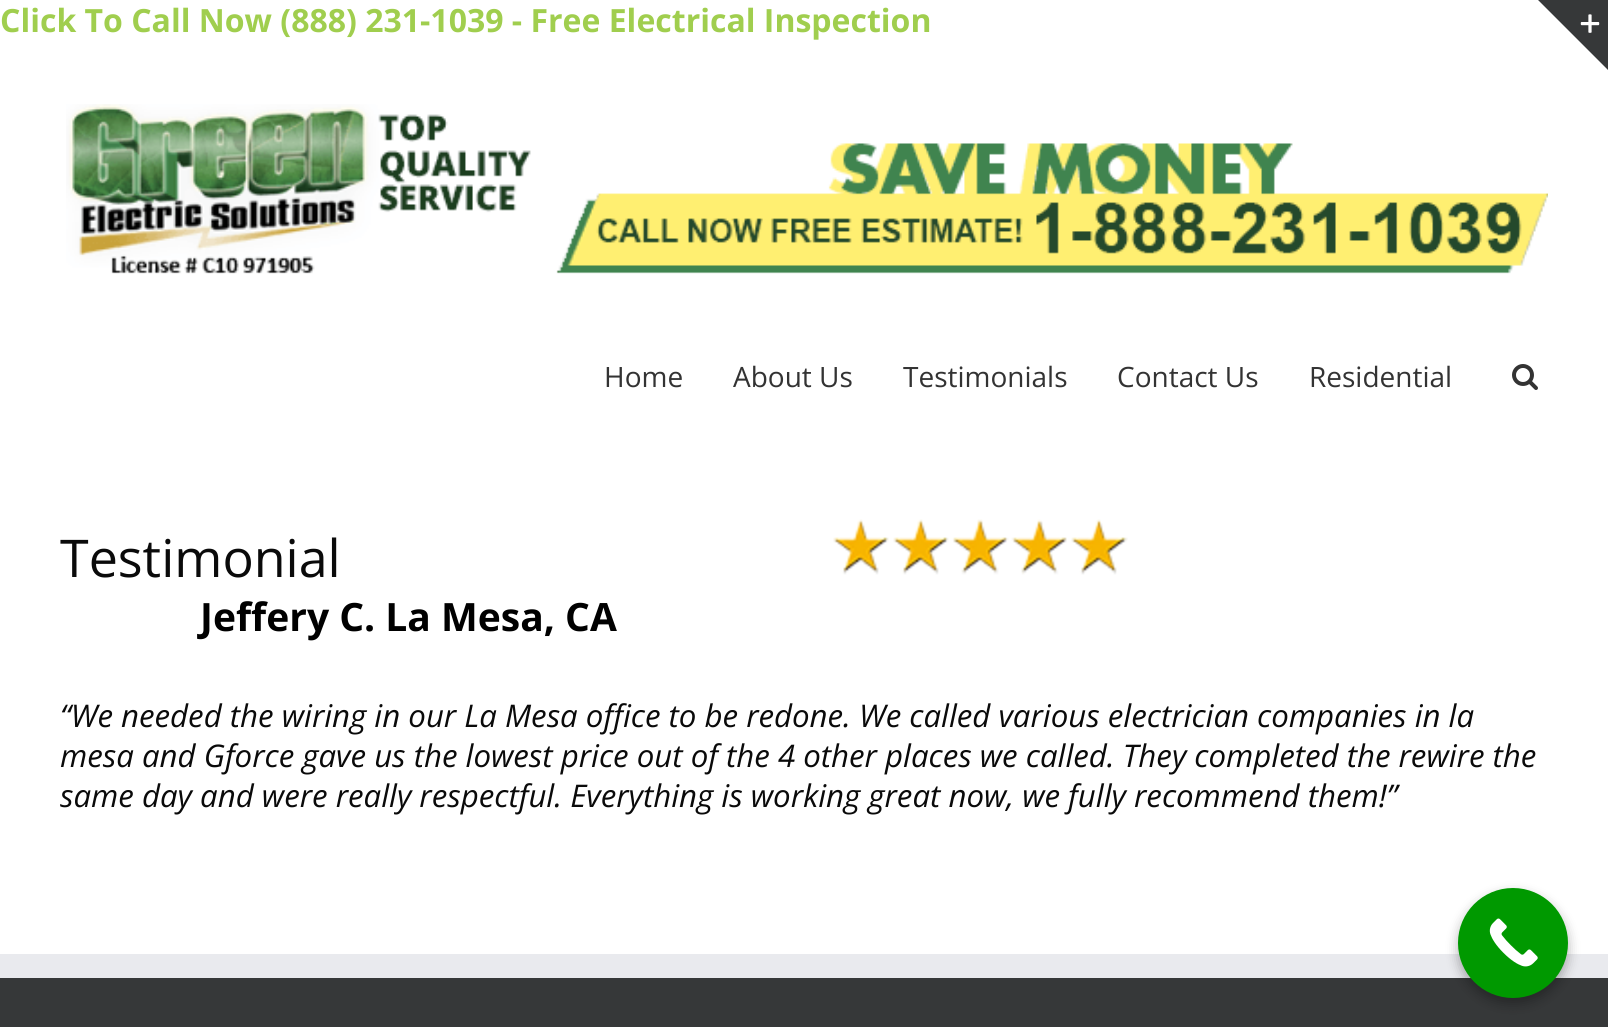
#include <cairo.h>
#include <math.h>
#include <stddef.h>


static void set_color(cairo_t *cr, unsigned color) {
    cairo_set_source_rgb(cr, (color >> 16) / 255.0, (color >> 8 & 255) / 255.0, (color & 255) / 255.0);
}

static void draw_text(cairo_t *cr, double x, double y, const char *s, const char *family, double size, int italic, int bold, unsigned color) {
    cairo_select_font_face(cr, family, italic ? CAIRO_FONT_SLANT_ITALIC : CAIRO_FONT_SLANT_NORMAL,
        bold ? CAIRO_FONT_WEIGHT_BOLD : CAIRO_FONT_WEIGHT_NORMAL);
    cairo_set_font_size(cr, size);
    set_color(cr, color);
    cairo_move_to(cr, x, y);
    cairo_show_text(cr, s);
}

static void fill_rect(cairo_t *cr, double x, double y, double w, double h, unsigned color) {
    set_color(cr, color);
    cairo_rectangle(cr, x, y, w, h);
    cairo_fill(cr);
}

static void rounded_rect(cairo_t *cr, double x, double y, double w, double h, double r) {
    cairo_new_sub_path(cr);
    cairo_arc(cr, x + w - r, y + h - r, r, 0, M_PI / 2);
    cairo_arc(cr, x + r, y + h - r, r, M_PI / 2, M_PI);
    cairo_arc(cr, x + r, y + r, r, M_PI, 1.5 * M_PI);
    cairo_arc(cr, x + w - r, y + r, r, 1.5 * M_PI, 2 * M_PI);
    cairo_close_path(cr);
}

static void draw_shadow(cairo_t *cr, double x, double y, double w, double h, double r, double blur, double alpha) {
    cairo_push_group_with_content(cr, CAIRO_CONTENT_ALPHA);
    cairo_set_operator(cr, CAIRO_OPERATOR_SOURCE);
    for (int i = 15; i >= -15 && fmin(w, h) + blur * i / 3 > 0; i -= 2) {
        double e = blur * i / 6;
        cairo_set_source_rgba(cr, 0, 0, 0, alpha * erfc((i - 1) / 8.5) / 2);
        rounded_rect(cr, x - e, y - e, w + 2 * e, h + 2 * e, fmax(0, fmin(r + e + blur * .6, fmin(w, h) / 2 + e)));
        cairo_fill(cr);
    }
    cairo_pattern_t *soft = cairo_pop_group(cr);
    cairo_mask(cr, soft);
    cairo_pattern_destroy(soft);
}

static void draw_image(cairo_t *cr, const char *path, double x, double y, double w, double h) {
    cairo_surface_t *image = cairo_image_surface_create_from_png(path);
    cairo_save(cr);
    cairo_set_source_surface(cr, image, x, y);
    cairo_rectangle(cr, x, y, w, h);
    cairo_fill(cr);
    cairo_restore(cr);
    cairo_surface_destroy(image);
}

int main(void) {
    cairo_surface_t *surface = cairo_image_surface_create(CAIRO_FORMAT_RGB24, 1608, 1027);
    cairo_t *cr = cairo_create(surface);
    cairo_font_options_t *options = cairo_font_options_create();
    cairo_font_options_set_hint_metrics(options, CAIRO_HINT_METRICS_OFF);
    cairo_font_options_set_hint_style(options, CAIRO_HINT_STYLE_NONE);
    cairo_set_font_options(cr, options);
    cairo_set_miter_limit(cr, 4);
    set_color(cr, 0xFFFFFF);
    cairo_paint(cr);
    draw_text(cr, 0, 32, "Click To Call Now (888) 231-1039 - Free Electrical Inspection", "Open Sans", 32, 0, 1, 0xA0CE4E);
    set_color(cr, 0x363839);
    cairo_new_path(cr);
    cairo_move_to(cr, 1538, 0);
    cairo_line_to(cr, 1608, 0);
    cairo_line_to(cr, 1608, 70);
    cairo_close_path(cr);
    cairo_fill(cr);
    draw_image(cr, "assets/img1.png", 1580, 14, 20, 19);
    draw_image(cr, "assets/img2.png", 66, 104, 1482, 170);
    draw_text(cr, 604, 387, "Home", "Open Sans", 28, 0, 0, 0x333333);
    draw_text(cr, 733, 387, "About Us", "Open Sans", 28, 0, 0, 0x333333);
    draw_text(cr, 903, 387, "Testimonials", "Open Sans", 28, 0, 0, 0x333333);
    draw_text(cr, 1117, 387, "Contact Us", "Open Sans", 28, 0, 0, 0x333333);
    draw_text(cr, 1309, 387, "Residential", "Open Sans", 28, 0, 0, 0x333333);
    draw_image(cr, "assets/img3.png", 1512, 364, 26, 26);
    draw_text(cr, 60, 577, "Testimonial", "Open Sans", 52, 0, 0, 0x0A0A0A);
    draw_text(cr, 200, 631, "Jeffery C. La Mesa, CA", "Open Sans", 39, 0, 1, 0x000000);
    draw_image(cr, "assets/img4.png", 833, 519, 295, 56);
    draw_text(cr, 60, 727, "“We needed the wiring in our La Mesa office to be redone. We called various electrician companies in la", "Open Sans", 31.2, 1, 0, 0x0A0A0A);
    draw_text(cr, 60, 767, "mesa and Gforce gave us the lowest price out of the 4 other places we called. They completed the rewire the", "Open Sans", 31.2, 1, 0, 0x0A0A0A);
    draw_text(cr, 60, 807, "same day and were really respectful. Everything is working great now, we fully recommend them!”", "Open Sans", 31.2, 1, 0, 0x0A0A0A);
    fill_rect(cr, 0, 978, 1608, 49, 0x363839);
    fill_rect(cr, 0, 954, 1608, 24, 0xE9EAEE);
    set_color(cr, 0x000000);
    draw_shadow(cr, 1458, 894, 110, 110, 55, 6, 0.3);
    set_color(cr, 0x009900);
    cairo_arc(cr, 1513, 943, 55, 0, 2 * M_PI);
    cairo_fill(cr);
    draw_image(cr, "assets/img5.png", 1489, 918, 49, 49);
    cairo_surface_write_to_png(surface, "output.png");
    cairo_font_options_destroy(options);
    cairo_destroy(cr);
    cairo_surface_destroy(surface);
    return 0;
}
